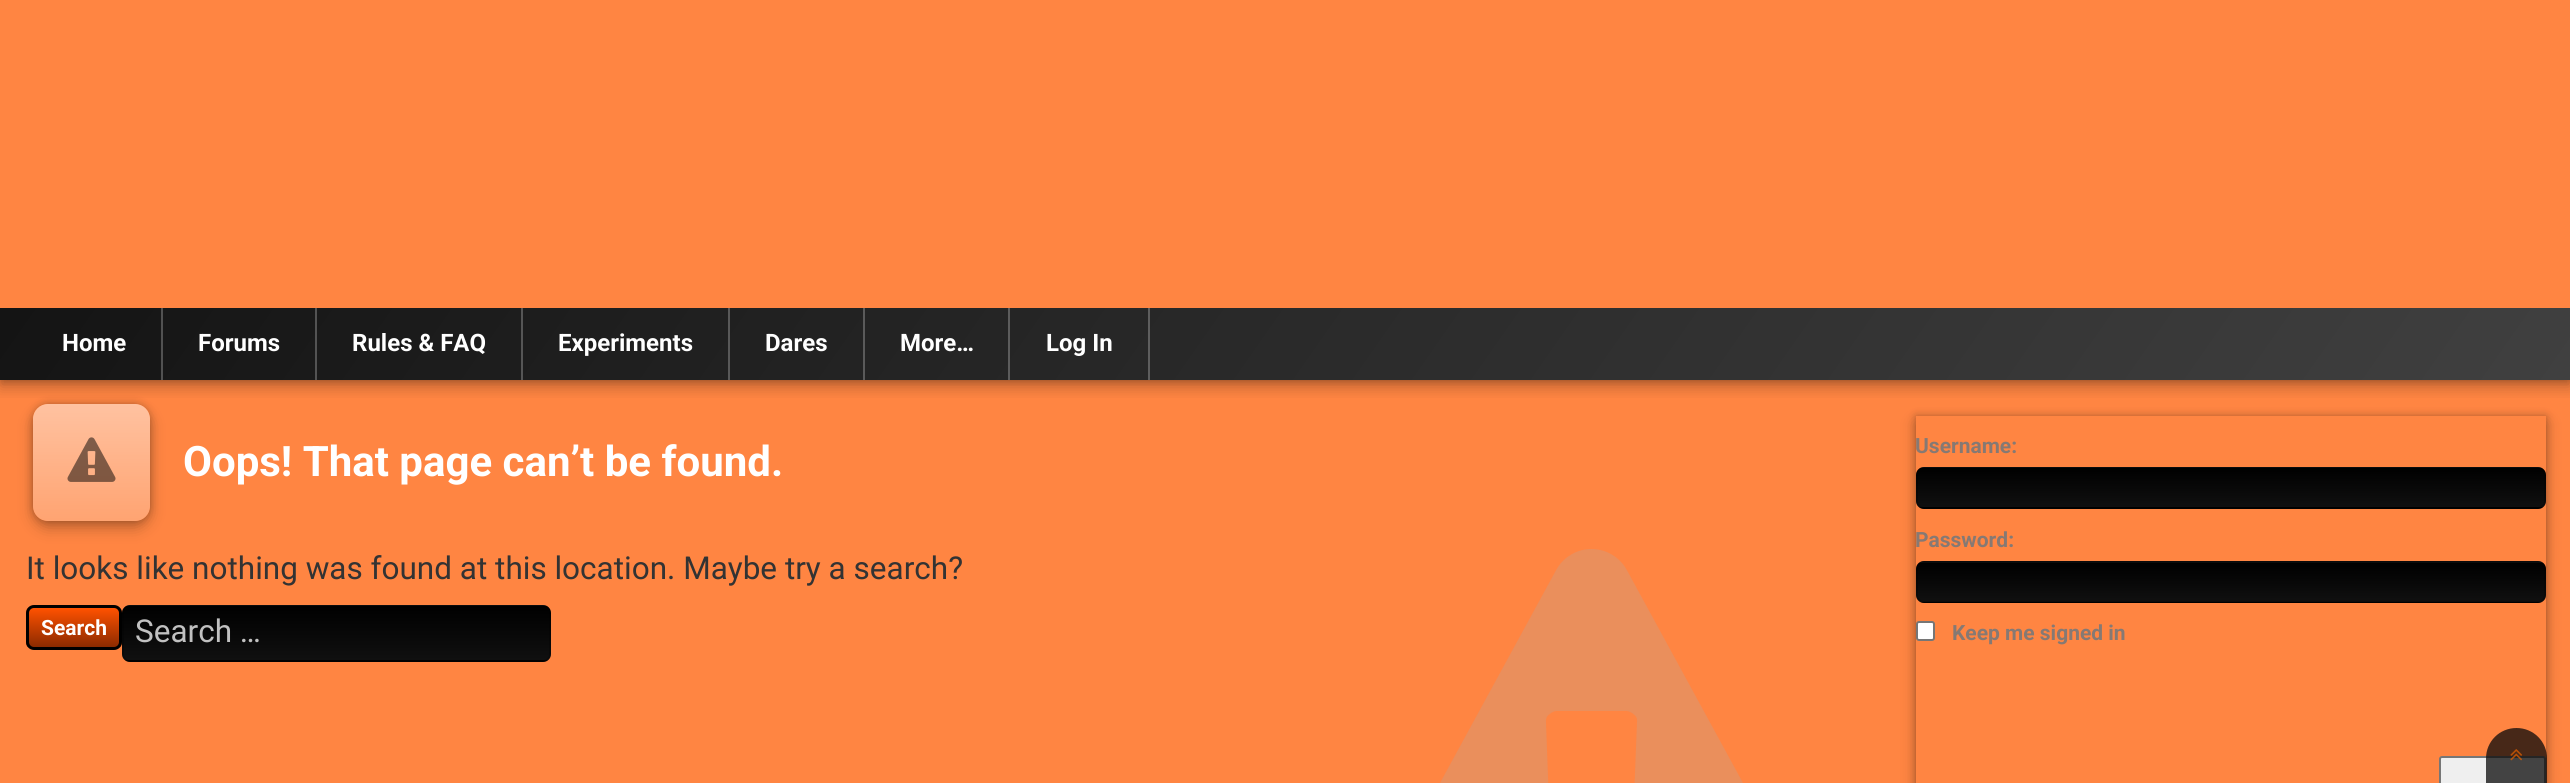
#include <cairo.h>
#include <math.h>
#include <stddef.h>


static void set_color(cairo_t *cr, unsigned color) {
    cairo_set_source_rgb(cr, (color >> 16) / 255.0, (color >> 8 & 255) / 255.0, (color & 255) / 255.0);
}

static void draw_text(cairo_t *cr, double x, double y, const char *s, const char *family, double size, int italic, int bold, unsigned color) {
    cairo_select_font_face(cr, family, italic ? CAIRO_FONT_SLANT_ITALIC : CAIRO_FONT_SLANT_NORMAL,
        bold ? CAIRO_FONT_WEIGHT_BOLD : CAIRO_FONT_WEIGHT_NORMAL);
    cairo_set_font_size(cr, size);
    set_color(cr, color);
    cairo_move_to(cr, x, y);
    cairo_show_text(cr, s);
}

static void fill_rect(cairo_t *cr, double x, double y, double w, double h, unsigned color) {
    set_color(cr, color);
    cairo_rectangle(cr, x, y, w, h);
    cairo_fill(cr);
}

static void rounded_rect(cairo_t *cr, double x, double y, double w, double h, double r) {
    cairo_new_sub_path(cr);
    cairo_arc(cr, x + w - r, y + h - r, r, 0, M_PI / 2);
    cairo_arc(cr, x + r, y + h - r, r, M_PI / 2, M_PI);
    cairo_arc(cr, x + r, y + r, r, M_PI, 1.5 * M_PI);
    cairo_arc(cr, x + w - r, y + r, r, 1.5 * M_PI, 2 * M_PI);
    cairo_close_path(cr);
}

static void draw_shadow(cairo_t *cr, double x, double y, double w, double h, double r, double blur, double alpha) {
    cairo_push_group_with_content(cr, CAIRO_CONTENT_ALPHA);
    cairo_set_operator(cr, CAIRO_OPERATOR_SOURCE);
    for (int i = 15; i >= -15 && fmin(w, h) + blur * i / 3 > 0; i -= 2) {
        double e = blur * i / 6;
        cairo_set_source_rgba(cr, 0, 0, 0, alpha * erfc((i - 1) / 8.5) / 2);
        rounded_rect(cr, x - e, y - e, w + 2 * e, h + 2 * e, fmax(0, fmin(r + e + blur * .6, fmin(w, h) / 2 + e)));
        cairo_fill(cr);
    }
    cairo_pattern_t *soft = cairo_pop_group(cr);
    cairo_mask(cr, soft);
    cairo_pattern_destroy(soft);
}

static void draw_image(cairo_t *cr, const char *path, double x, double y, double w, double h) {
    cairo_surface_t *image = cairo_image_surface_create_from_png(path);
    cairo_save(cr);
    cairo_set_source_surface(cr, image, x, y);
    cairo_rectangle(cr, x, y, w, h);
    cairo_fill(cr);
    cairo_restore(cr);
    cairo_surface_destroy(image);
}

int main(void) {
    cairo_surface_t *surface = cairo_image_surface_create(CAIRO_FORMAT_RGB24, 2570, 783);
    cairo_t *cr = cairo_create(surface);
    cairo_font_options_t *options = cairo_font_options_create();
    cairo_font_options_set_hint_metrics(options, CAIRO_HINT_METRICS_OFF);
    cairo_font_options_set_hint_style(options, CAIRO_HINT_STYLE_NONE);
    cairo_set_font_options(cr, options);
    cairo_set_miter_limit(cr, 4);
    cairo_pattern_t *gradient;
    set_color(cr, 0xFF8542);
    cairo_paint(cr);
    cairo_save(cr);
    cairo_rectangle(cr, 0, 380, 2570, 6);
    cairo_clip(cr);
    set_color(cr, 0x000000);
    draw_shadow(cr, 0, -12, 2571, 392, 0, 4, 0.25);
    cairo_restore(cr);
    cairo_save(cr);
    cairo_set_fill_rule(cr, CAIRO_FILL_RULE_EVEN_ODD);
    cairo_new_path(cr);
    cairo_move_to(cr, 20, 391);
    cairo_line_to(cr, 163, 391);
    cairo_line_to(cr, 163, 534);
    cairo_line_to(cr, 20, 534);
    cairo_close_path(cr);
    cairo_move_to(cr, 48, 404);
    cairo_line_to(cr, 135, 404);
    cairo_curve_to(cr, 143.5, 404, 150, 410.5, 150, 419);
    cairo_line_to(cr, 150, 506);
    cairo_curve_to(cr, 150, 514.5, 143.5, 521, 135, 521);
    cairo_line_to(cr, 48, 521);
    cairo_curve_to(cr, 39.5, 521, 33, 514.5, 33, 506);
    cairo_line_to(cr, 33, 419);
    cairo_curve_to(cr, 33, 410.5, 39.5, 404, 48, 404);
    cairo_close_path(cr);
    cairo_clip(cr);
    set_color(cr, 0x000000);
    draw_shadow(cr, 33, 404, 117, 117, 15, 4, 0.25);
    cairo_restore(cr);
    cairo_save(cr);
    cairo_set_fill_rule(cr, CAIRO_FILL_RULE_EVEN_ODD);
    cairo_new_path(cr);
    cairo_move_to(cr, 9, 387);
    cairo_line_to(cr, 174, 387);
    cairo_line_to(cr, 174, 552);
    cairo_line_to(cr, 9, 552);
    cairo_close_path(cr);
    cairo_move_to(cr, 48, 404);
    cairo_line_to(cr, 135, 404);
    cairo_curve_to(cr, 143.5, 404, 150, 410.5, 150, 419);
    cairo_line_to(cr, 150, 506);
    cairo_curve_to(cr, 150, 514.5, 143.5, 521, 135, 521);
    cairo_line_to(cr, 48, 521);
    cairo_curve_to(cr, 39.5, 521, 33, 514.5, 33, 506);
    cairo_line_to(cr, 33, 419);
    cairo_curve_to(cr, 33, 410.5, 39.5, 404, 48, 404);
    cairo_close_path(cr);
    cairo_clip(cr);
    set_color(cr, 0x000000);
    draw_shadow(cr, 33, 411, 117, 117, 15, 7.5, 0.25);
    cairo_restore(cr);
    gradient = cairo_pattern_create_linear(92, 521, 92, 404);
    cairo_pattern_add_color_stop_rgba(gradient, 0, 1, 1, 1, 0.25);
    cairo_pattern_add_color_stop_rgba(gradient, 1, 1, 1, 1, 0.5);
    cairo_set_source(cr, gradient);
    cairo_pattern_destroy(gradient);
    rounded_rect(cr, 33, 404, 117, 117, 15);
    cairo_fill(cr);
    cairo_save(cr);
    cairo_rectangle(cr, 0, 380, 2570, 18);
    cairo_clip(cr);
    set_color(cr, 0x000000);
    draw_shadow(cr, 0, -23, 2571, 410, 0, 7.5, 0.25);
    cairo_restore(cr);
    gradient = cairo_pattern_create_linear(406, -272, 2165, 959);
    cairo_pattern_add_color_stop_rgba(gradient, 0, 0.078, 0.078, 0.078, 1);
    cairo_pattern_add_color_stop_rgba(gradient, 1, 0.251, 0.251, 0.251, 1);
    cairo_set_source(cr, gradient);
    cairo_pattern_destroy(gradient);
    cairo_rectangle(cr, 0, 308, 2570, 72);
    cairo_fill(cr);
    draw_text(cr, 62, 351, "Home", "Roboto", 24, 0, 1, 0xFFFFFF);
    fill_rect(cr, 161, 308, 2, 72, 0x515151);
    draw_text(cr, 198, 351, "Forums", "Roboto", 24, 0, 1, 0xFFFFFF);
    fill_rect(cr, 315, 308, 2, 72, 0x535353);
    draw_text(cr, 352, 351, "Rules & FAQ", "Roboto", 24, 0, 1, 0xFFFFFF);
    fill_rect(cr, 521, 308, 2, 72, 0x565656);
    draw_text(cr, 558, 351, "Experiments", "Roboto", 24, 0, 1, 0xFFFFFF);
    fill_rect(cr, 728, 308, 2, 72, 0x585858);
    draw_text(cr, 765, 351, "Dares", "Roboto", 24, 0, 1, 0xFFFFFF);
    fill_rect(cr, 863, 308, 2, 72, 0x5A5A5A);
    draw_text(cr, 900, 351, "More…", "Roboto", 24, 0, 1, 0xFFFFFF);
    fill_rect(cr, 1008, 308, 2, 72, 0x5C5C5C);
    draw_text(cr, 1046, 351, "Log In", "Roboto", 24, 0, 1, 0xFFFFFF);
    fill_rect(cr, 1148, 308, 2, 72, 0x5E5E5E);
    draw_image(cr, "assets/img1.png", 67, 437, 49, 45);
    draw_text(cr, 183, 476, "Oops! That page can’t be found.", "Roboto", 42, 0, 1, 0xFFFFFF);
    draw_text(cr, 26, 579, "It looks like nothing was found at this location. Maybe try a search?", "Roboto", 31.5, 0, 0, 0x333333);
    cairo_save(cr);
    rounded_rect(cr, 26, 605, 96, 45, 8);
    cairo_clip(cr);
    gradient = cairo_pattern_create_linear(74, 608, 74, 647);
    cairo_pattern_add_color_stop_rgba(gradient, 0, 1, 0.318, 0, 1);
    cairo_pattern_add_color_stop_rgba(gradient, 1, 0.549, 0.165, 0, 1);
    cairo_set_source(cr, gradient);
    cairo_pattern_destroy(gradient);
    cairo_rectangle(cr, 26, 608, 96, 39);
    cairo_fill(cr);
    cairo_restore(cr);
    rounded_rect(cr, 27.5, 606.5, 93, 42, 6.5);
    set_color(cr, 0x000000);
    cairo_set_line_width(cr, 3);
    cairo_stroke(cr);
    draw_text(cr, 41, 635, "Search", "Roboto", 21, 0, 1, 0xFFFFFF);
    cairo_save(cr);
    rounded_rect(cr, 122, 605, 429, 57, 8);
    cairo_clip(cr);
    gradient = cairo_pattern_create_linear(336, 552, 336, 606);
    cairo_pattern_add_color_stop_rgba(gradient, 0, 0, 0, 0, 1);
    cairo_pattern_add_color_stop_rgba(gradient, 1, 0.063, 0.063, 0.063, 1);
    cairo_set_source(cr, gradient);
    cairo_pattern_destroy(gradient);
    cairo_rectangle(cr, 122, 605, 429, 1);
    cairo_fill(cr);
    gradient = cairo_pattern_create_linear(336, 606, 336, 660);
    cairo_pattern_add_color_stop_rgba(gradient, 0, 0, 0, 0, 1);
    cairo_pattern_add_color_stop_rgba(gradient, 1, 0.063, 0.063, 0.063, 1);
    cairo_set_source(cr, gradient);
    cairo_pattern_destroy(gradient);
    cairo_rectangle(cr, 122, 606, 429, 54);
    cairo_fill(cr);
    gradient = cairo_pattern_create_linear(336, 660, 336, 714);
    cairo_pattern_add_color_stop_rgba(gradient, 0, 0, 0, 0, 1);
    cairo_pattern_add_color_stop_rgba(gradient, 1, 0.063, 0.063, 0.063, 1);
    cairo_set_source(cr, gradient);
    cairo_pattern_destroy(gradient);
    cairo_rectangle(cr, 122, 660, 429, 2);
    cairo_fill(cr);
    cairo_restore(cr);
    rounded_rect(cr, 123, 606, 427, 55, 7);
    cairo_set_source_rgba(cr, 0, 0, 0, 0.25);
    cairo_set_line_width(cr, 2);
    cairo_stroke(cr);
    draw_text(cr, 135, 642, "Search …", "Roboto", 31.5, 0, 0, 0xC1C1C1);
    draw_image(cr, "assets/img2.png", 1440, 549, 303, 234);
    cairo_save(cr);
    cairo_set_fill_rule(cr, CAIRO_FILL_RULE_EVEN_ODD);
    cairo_new_path(cr);
    cairo_move_to(cr, 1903, 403);
    cairo_line_to(cr, 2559, 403);
    cairo_line_to(cr, 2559, 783);
    cairo_line_to(cr, 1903, 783);
    cairo_close_path(cr);
    cairo_move_to(cr, 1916, 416);
    cairo_line_to(cr, 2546, 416);
    cairo_line_to(cr, 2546, 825);
    cairo_line_to(cr, 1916, 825);
    cairo_close_path(cr);
    cairo_clip(cr);
    set_color(cr, 0x000000);
    draw_shadow(cr, 1916, 416, 630, 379, 0, 4, 0.25);
    cairo_restore(cr);
    cairo_save(cr);
    cairo_set_fill_rule(cr, CAIRO_FILL_RULE_EVEN_ODD);
    cairo_new_path(cr);
    cairo_move_to(cr, 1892, 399);
    cairo_line_to(cr, 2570, 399);
    cairo_line_to(cr, 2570, 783);
    cairo_line_to(cr, 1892, 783);
    cairo_close_path(cr);
    cairo_move_to(cr, 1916, 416);
    cairo_line_to(cr, 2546, 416);
    cairo_line_to(cr, 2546, 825);
    cairo_line_to(cr, 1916, 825);
    cairo_close_path(cr);
    cairo_clip(cr);
    set_color(cr, 0x000000);
    draw_shadow(cr, 1916, 423, 630, 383, 0, 7.5, 0.25);
    cairo_restore(cr);
    draw_text(cr, 1915, 453, "Username:", "Roboto", 21, 0, 1, 0x867973);
    cairo_save(cr);
    rounded_rect(cr, 1916, 467, 630, 42, 8);
    cairo_clip(cr);
    gradient = cairo_pattern_create_linear(2231, 429, 2231, 468);
    cairo_pattern_add_color_stop_rgba(gradient, 0, 0, 0, 0, 1);
    cairo_pattern_add_color_stop_rgba(gradient, 1, 0.063, 0.063, 0.063, 1);
    cairo_set_source(cr, gradient);
    cairo_pattern_destroy(gradient);
    cairo_rectangle(cr, 1916, 467, 630, 1);
    cairo_fill(cr);
    gradient = cairo_pattern_create_linear(2231, 468, 2231, 507);
    cairo_pattern_add_color_stop_rgba(gradient, 0, 0, 0, 0, 1);
    cairo_pattern_add_color_stop_rgba(gradient, 1, 0.063, 0.063, 0.063, 1);
    cairo_set_source(cr, gradient);
    cairo_pattern_destroy(gradient);
    cairo_rectangle(cr, 1916, 468, 630, 39);
    cairo_fill(cr);
    gradient = cairo_pattern_create_linear(2231, 507, 2231, 546);
    cairo_pattern_add_color_stop_rgba(gradient, 0, 0, 0, 0, 1);
    cairo_pattern_add_color_stop_rgba(gradient, 1, 0.063, 0.063, 0.063, 1);
    cairo_set_source(cr, gradient);
    cairo_pattern_destroy(gradient);
    cairo_rectangle(cr, 1916, 507, 630, 2);
    cairo_fill(cr);
    cairo_restore(cr);
    rounded_rect(cr, 1917, 468, 628, 40, 7);
    cairo_set_source_rgba(cr, 0, 0, 0, 0.25);
    cairo_stroke(cr);
    draw_text(cr, 1915, 547, "Password:", "Roboto", 21, 0, 1, 0x867973);
    cairo_save(cr);
    rounded_rect(cr, 1916, 561, 630, 42, 8);
    cairo_clip(cr);
    gradient = cairo_pattern_create_linear(2231, 524, 2231, 563);
    cairo_pattern_add_color_stop_rgba(gradient, 0, 0, 0, 0, 1);
    cairo_pattern_add_color_stop_rgba(gradient, 1, 0.063, 0.063, 0.063, 1);
    cairo_set_source(cr, gradient);
    cairo_pattern_destroy(gradient);
    cairo_rectangle(cr, 1916, 561, 630, 2);
    cairo_fill(cr);
    gradient = cairo_pattern_create_linear(2231, 563, 2231, 602);
    cairo_pattern_add_color_stop_rgba(gradient, 0, 0, 0, 0, 1);
    cairo_pattern_add_color_stop_rgba(gradient, 1, 0.063, 0.063, 0.063, 1);
    cairo_set_source(cr, gradient);
    cairo_pattern_destroy(gradient);
    cairo_rectangle(cr, 1916, 563, 630, 39);
    cairo_fill(cr);
    gradient = cairo_pattern_create_linear(2231, 602, 2231, 641);
    cairo_pattern_add_color_stop_rgba(gradient, 0, 0, 0, 0, 1);
    cairo_pattern_add_color_stop_rgba(gradient, 1, 0.063, 0.063, 0.063, 1);
    cairo_set_source(cr, gradient);
    cairo_pattern_destroy(gradient);
    cairo_rectangle(cr, 1916, 602, 630, 1);
    cairo_fill(cr);
    cairo_restore(cr);
    rounded_rect(cr, 1917, 562, 628, 40, 7);
    cairo_set_source_rgba(cr, 0, 0, 0, 0.25);
    cairo_stroke(cr);
    set_color(cr, 0xFFFFFF);
    rounded_rect(cr, 1917, 622, 17, 18, 2);
    cairo_fill_preserve(cr);
    set_color(cr, 0x767676);
    cairo_stroke(cr);
    draw_text(cr, 1952, 640, "Keep me signed in", "Roboto", 21, 0, 1, 0x867973);
    set_color(cr, 0xEFEFEF);
    rounded_rect(cr, 2440, 757, 105, 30, 2);
    cairo_fill_preserve(cr);
    set_color(cr, 0x767676);
    cairo_stroke(cr);
    cairo_set_source_rgba(cr, 0.039, 0.039, 0.039, 0.75);
    cairo_new_path(cr);
    cairo_move_to(cr, 2516.5, 728);
    cairo_curve_to(cr, 2533.5, 728, 2547, 741.5, 2547, 758.5);
    cairo_line_to(cr, 2547, 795);
    cairo_line_to(cr, 2486, 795);
    cairo_line_to(cr, 2486, 758.5);
    cairo_curve_to(cr, 2486, 741.5, 2499.5, 728, 2516.5, 728);
    cairo_close_path(cr);
    cairo_fill(cr);
    draw_image(cr, "assets/img3.png", 2510, 749, 12, 12);
    cairo_surface_write_to_png(surface, "output.png");
    cairo_font_options_destroy(options);
    cairo_destroy(cr);
    cairo_surface_destroy(surface);
    return 0;
}
